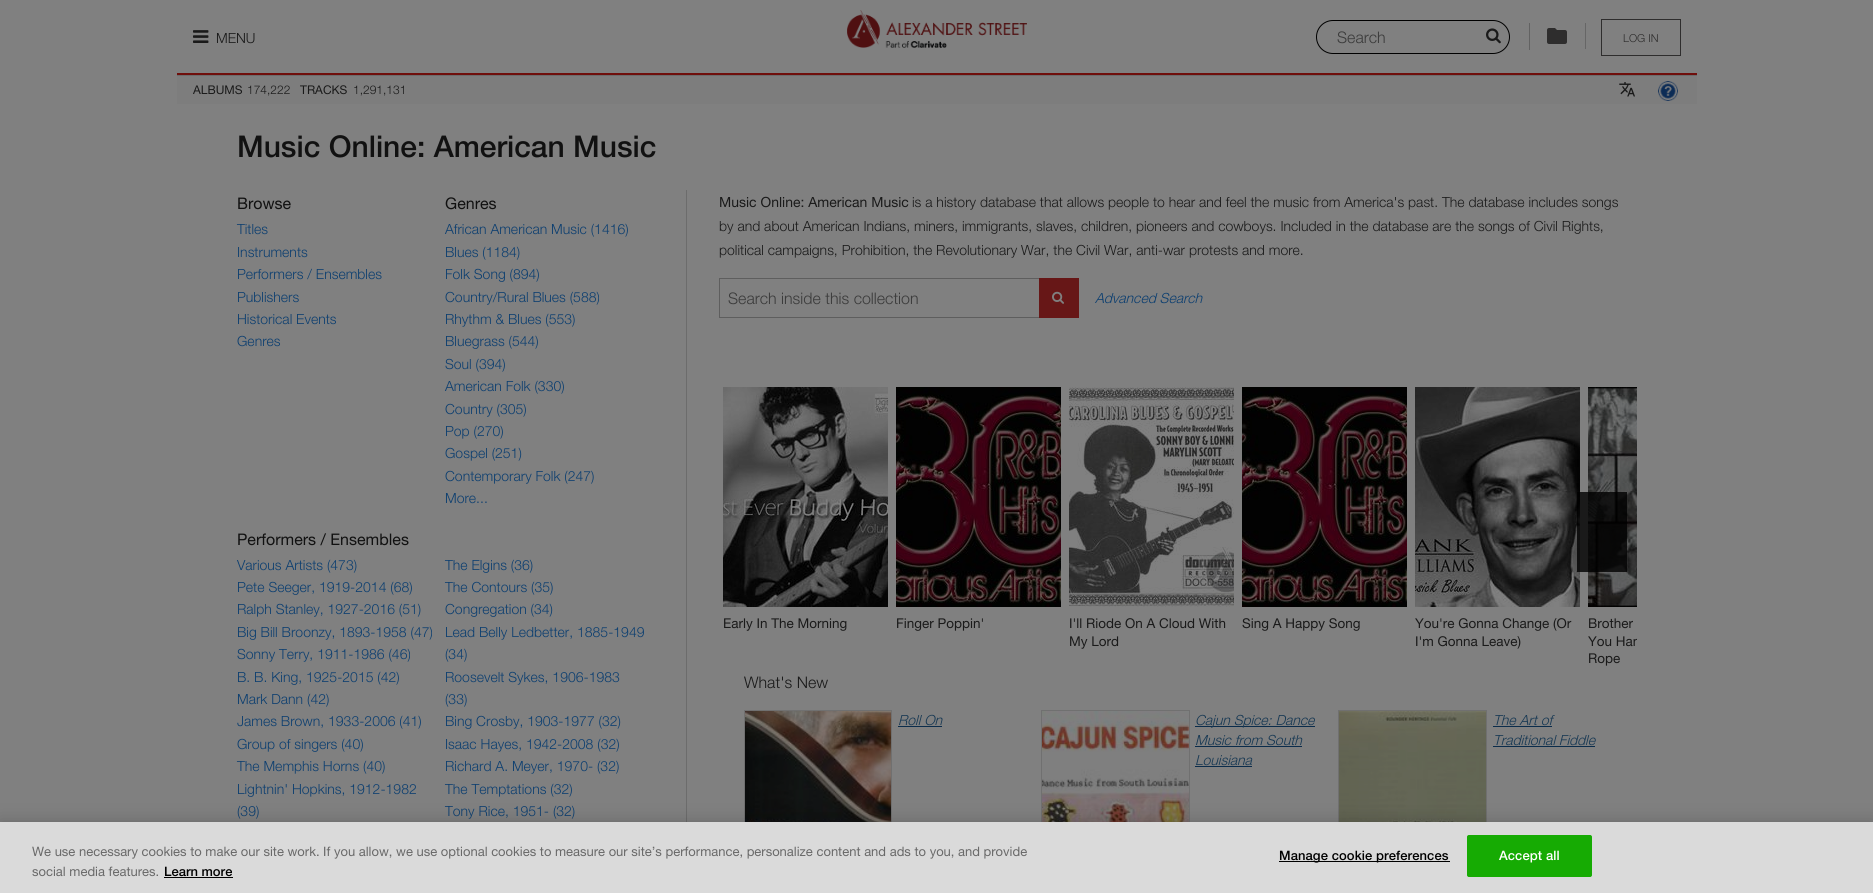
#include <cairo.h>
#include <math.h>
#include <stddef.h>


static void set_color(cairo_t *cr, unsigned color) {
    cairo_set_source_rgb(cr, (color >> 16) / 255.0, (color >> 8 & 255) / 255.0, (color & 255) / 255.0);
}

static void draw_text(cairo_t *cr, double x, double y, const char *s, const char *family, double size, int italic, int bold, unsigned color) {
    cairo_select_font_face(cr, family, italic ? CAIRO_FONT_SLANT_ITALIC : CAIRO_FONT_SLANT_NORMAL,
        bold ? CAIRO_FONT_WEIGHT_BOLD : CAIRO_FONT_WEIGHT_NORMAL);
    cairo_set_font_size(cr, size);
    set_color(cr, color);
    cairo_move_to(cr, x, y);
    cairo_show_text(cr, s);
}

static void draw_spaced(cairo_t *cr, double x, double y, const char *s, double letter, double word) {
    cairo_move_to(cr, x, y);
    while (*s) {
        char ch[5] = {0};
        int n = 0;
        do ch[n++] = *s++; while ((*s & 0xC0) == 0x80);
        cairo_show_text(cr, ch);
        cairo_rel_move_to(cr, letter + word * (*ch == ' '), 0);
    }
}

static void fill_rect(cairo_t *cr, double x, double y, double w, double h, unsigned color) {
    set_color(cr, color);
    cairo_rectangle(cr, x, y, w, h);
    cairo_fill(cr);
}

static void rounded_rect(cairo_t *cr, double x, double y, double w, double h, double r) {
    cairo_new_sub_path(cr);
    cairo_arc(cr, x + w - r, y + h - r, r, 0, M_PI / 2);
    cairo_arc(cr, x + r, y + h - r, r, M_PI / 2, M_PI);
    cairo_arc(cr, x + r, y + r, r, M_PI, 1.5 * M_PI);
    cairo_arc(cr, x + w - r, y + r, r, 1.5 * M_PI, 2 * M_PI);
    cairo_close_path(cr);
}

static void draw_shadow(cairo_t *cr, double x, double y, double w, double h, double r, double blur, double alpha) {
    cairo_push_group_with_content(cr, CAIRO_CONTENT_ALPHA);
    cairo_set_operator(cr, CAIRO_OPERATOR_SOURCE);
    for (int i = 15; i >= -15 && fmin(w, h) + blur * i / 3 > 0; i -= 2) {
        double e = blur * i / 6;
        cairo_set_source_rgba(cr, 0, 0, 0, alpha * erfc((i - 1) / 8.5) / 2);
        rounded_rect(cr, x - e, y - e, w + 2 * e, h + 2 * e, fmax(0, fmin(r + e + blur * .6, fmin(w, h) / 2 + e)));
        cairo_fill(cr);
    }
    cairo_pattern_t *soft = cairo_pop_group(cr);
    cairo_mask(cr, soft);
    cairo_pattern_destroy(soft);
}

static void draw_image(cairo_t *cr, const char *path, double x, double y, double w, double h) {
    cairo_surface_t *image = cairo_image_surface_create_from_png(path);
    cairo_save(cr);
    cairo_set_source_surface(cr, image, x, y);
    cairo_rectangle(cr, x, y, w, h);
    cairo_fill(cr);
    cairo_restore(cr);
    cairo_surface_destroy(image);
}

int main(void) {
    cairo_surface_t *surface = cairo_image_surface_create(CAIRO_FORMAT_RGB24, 1873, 893);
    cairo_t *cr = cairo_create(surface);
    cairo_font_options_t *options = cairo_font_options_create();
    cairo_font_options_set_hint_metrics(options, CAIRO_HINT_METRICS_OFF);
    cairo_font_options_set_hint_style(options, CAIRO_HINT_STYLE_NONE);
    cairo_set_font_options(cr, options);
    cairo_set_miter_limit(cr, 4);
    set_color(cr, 0x808080);
    cairo_paint(cr);
    fill_rect(cr, 177, 73, 1520, 2, 0x6F0E0B);
    draw_image(cr, "assets/img1.png", 193, 30, 16, 13);
    draw_text(cr, 216, 43, "MENU", "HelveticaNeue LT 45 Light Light", 14, 0, 0, 0x1A1A1A);
    draw_image(cr, "assets/img2.png", 847, 10, 180, 38);
    rounded_rect(cr, 1316.5, 20.5, 193, 33, 16.5);
    set_color(cr, 0x000000);
    cairo_set_line_width(cr, 1);
    cairo_stroke(cr);
    draw_text(cr, 1337, 43, "Search", "HelveticaNeue LT 45 Light Light", 16, 0, 0, 0x3B3B3B);
    draw_image(cr, "assets/img3.png", 1486, 28, 15, 16);
    fill_rect(cr, 1529, 23, 1, 27, 0x626262);
    draw_image(cr, "assets/img4.png", 1547, 28, 20, 16);
    fill_rect(cr, 1585, 23, 1, 26, 0x666666);
    cairo_rectangle(cr, 1601.5, 19.5, 79, 36);
    set_color(cr, 0x2E2D2D);
    cairo_stroke(cr);
    draw_text(cr, 1623, 42, "LOG IN", "HelveticaNeue LT 45 Light Light", 11, 0, 0, 0x2E2D2D);
    fill_rect(cr, 177, 76, 1520, 28, 0x7D7D7D);
    fill_rect(cr, 177, 75, 1520, 1, 0x6C6C6C);
    draw_text(cr, 193, 94, "ALBUMS", "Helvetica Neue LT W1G", 12, 0, 0, 0x1A1A1A);
    draw_text(cr, 247, 94, "174,222", "HelveticaNeue LT 45 Light Light", 12, 0, 0, 0x1A1A1A);
    draw_text(cr, 300, 94, "TRACKS", "Helvetica Neue LT W1G", 12, 0, 0, 0x1A1A1A);
    draw_text(cr, 353, 94, "1,291,131", "HelveticaNeue LT 45 Light Light", 12, 0, 0, 0x1A1A1A);
    draw_image(cr, "assets/img5.png", 1619, 82, 16, 15);
    draw_image(cr, "assets/img6.png", 1658, 81, 20, 20);
    draw_text(cr, 237, 157, "Music Online: American Music", "Helvetica Neue Medium", 30, 0, 0, 0x111111);
    fill_rect(cr, 686, 190, 1, 632, 0x6C6C6C);
    draw_text(cr, 237, 209, "Browse", "Helvetica Neue LT W1G", 16, 0, 0, 0x111111);
    draw_text(cr, 237, 234, "Titles", "HelveticaNeue LT 45 Light Light", 14, 0, 0, 0x0D3F70);
    draw_text(cr, 237, 257, "Instruments", "HelveticaNeue LT 45 Light Light", 14, 0, 0, 0x0D3F70);
    draw_text(cr, 237, 279, "Performers / Ensembles", "HelveticaNeue LT 45 Light Light", 14, 0, 0, 0x0D3F70);
    draw_text(cr, 237, 302, "Publishers", "HelveticaNeue LT 45 Light Light", 14, 0, 0, 0x0D3F70);
    draw_text(cr, 237, 324, "Historical Events", "HelveticaNeue LT 45 Light Light", 14, 0, 0, 0x0D3F70);
    draw_text(cr, 237, 346, "Genres", "HelveticaNeue LT 45 Light Light", 14, 0, 0, 0x0D3F70);
    draw_text(cr, 445, 209, "Genres", "Helvetica Neue LT W1G", 16, 0, 0, 0x111111);
    draw_text(cr, 445, 234, "African American Music (1416)", "HelveticaNeue LT 45 Light Light", 14, 0, 0, 0x0D3F70);
    draw_text(cr, 445, 257, "Blues (1184)", "HelveticaNeue LT 45 Light Light", 14, 0, 0, 0x0D3F70);
    draw_text(cr, 445, 279, "Folk Song (894)", "HelveticaNeue LT 45 Light Light", 14, 0, 0, 0x0D3F70);
    draw_text(cr, 445, 302, "Country/Rural Blues (588)", "HelveticaNeue LT 45 Light Light", 14, 0, 0, 0x0D3F70);
    draw_text(cr, 445, 324, "Rhythm & Blues (553)", "HelveticaNeue LT 45 Light Light", 14, 0, 0, 0x0D3F70);
    draw_text(cr, 445, 346, "Bluegrass (544)", "HelveticaNeue LT 45 Light Light", 14, 0, 0, 0x0D3F70);
    draw_text(cr, 445, 369, "Soul (394)", "HelveticaNeue LT 45 Light Light", 14, 0, 0, 0x0D3F70);
    draw_text(cr, 445, 391, "American Folk (330)", "HelveticaNeue LT 45 Light Light", 14, 0, 0, 0x0D3F70);
    draw_text(cr, 445, 414, "Country (305)", "HelveticaNeue LT 45 Light Light", 14, 0, 0, 0x0D3F70);
    draw_text(cr, 445, 436, "Pop (270)", "HelveticaNeue LT 45 Light Light", 14, 0, 0, 0x0D3F70);
    draw_text(cr, 445, 458, "Gospel (251)", "HelveticaNeue LT 45 Light Light", 14, 0, 0, 0x0D3F70);
    draw_text(cr, 445, 481, "Contemporary Folk (247)", "HelveticaNeue LT 45 Light Light", 14, 0, 0, 0x0D3F70);
    draw_text(cr, 445, 503, "More...", "HelveticaNeue LT 45 Light Light", 14, 0, 0, 0x0D3F70);
    draw_text(cr, 237, 545, "Performers / Ensembles", "Helvetica Neue LT W1G", 16, 0, 0, 0x111111);
    draw_text(cr, 237, 570, "Various Artists (473)", "HelveticaNeue LT 45 Light Light", 14, 0, 0, 0x0D3F70);
    draw_text(cr, 237, 592, "Pete Seeger, 1919-2014 (68)", "HelveticaNeue LT 45 Light Light", 14, 0, 0, 0x0D3F70);
    draw_text(cr, 237, 614, "Ralph Stanley, 1927-2016 (51)", "HelveticaNeue LT 45 Light Light", 14, 0, 0, 0x0D3F70);
    draw_text(cr, 237, 637, "Big Bill Broonzy, 1893-1958 (47)", "HelveticaNeue LT 45 Light Light", 14, 0, 0, 0x0D3F70);
    draw_text(cr, 237, 659, "Sonny Terry, 1911-1986 (46)", "HelveticaNeue LT 45 Light Light", 14, 0, 0, 0x0D3F70);
    draw_text(cr, 237, 682, "B. B. King, 1925-2015 (42)", "HelveticaNeue LT 45 Light Light", 14, 0, 0, 0x0D3F70);
    draw_text(cr, 237, 704, "Mark Dann (42)", "HelveticaNeue LT 45 Light Light", 14, 0, 0, 0x0D3F70);
    draw_text(cr, 237, 726, "James Brown, 1933-2006 (41)", "HelveticaNeue LT 45 Light Light", 14, 0, 0, 0x0D3F70);
    draw_text(cr, 237, 749, "Group of singers (40)", "HelveticaNeue LT 45 Light Light", 14, 0, 0, 0x0D3F70);
    draw_text(cr, 237, 771, "The Memphis Horns (40)", "HelveticaNeue LT 45 Light Light", 14, 0, 0, 0x0D3F70);
    draw_text(cr, 237, 794, "Lightnin' Hopkins, 1912-1982", "HelveticaNeue LT 45 Light Light", 14, 0, 0, 0x0D3F70);
    draw_text(cr, 237, 816, "(39)", "HelveticaNeue LT 45 Light Light", 14, 0, 0, 0x0D3F70);
    draw_text(cr, 445, 570, "The Elgins (36)", "HelveticaNeue LT 45 Light Light", 14, 0, 0, 0x0D3F70);
    draw_text(cr, 445, 592, "The Contours (35)", "HelveticaNeue LT 45 Light Light", 14, 0, 0, 0x0D3F70);
    draw_text(cr, 445, 614, "Congregation (34)", "HelveticaNeue LT 45 Light Light", 14, 0, 0, 0x0D3F70);
    draw_text(cr, 445, 637, "Lead Belly Ledbetter, 1885-1949", "HelveticaNeue LT 45 Light Light", 14, 0, 0, 0x0D3F70);
    draw_text(cr, 445, 659, "(34)", "HelveticaNeue LT 45 Light Light", 14, 0, 0, 0x0D3F70);
    draw_text(cr, 445, 682, "Roosevelt Sykes, 1906-1983", "HelveticaNeue LT 45 Light Light", 14, 0, 0, 0x0D3F70);
    draw_text(cr, 445, 704, "(33)", "HelveticaNeue LT 45 Light Light", 14, 0, 0, 0x0D3F70);
    draw_text(cr, 445, 726, "Bing Crosby, 1903-1977 (32)", "HelveticaNeue LT 45 Light Light", 14, 0, 0, 0x0D3F70);
    draw_text(cr, 445, 749, "Isaac Hayes, 1942-2008 (32)", "HelveticaNeue LT 45 Light Light", 14, 0, 0, 0x0D3F70);
    draw_text(cr, 445, 771, "Richard A. Meyer, 1970- (32)", "HelveticaNeue LT 45 Light Light", 14, 0, 0, 0x0D3F70);
    draw_text(cr, 445, 794, "The Temptations (32)", "HelveticaNeue LT 45 Light Light", 14, 0, 0, 0x0D3F70);
    draw_text(cr, 445, 816, "Tony Rice, 1951- (32)", "HelveticaNeue LT 45 Light Light", 14, 0, 0, 0x0D3F70);
    draw_text(cr, 719, 207, "Music Online: American Music", "Helvetica Neue LT W1G", 14, 0, 0, 0x1A1A1A);
    draw_text(cr, 912, 207, "is a history database that allows people to hear and feel the music from America's past. The database includes songs", "HelveticaNeue LT 45 Light Light", 14, 0, 0, 0x1A1A1A);
    draw_text(cr, 719, 231, "by and about American Indians, miners, immigrants, slaves, children, pioneers and cowboys. Included in the database are the songs of Civil Rights,", "HelveticaNeue LT 45 Light Light", 14, 0, 0, 0x1A1A1A);
    draw_text(cr, 719, 255, "political campaigns, Prohibition, the Revolutionary War, the Civil War, anti-war protests and more.", "HelveticaNeue LT 45 Light Light", 14, 0, 0, 0x1A1A1A);
    fill_rect(cr, 719, 278, 320, 1, 0x5E5E5E);
    fill_rect(cr, 719, 317, 320, 1, 0x5E5E5E);
    fill_rect(cr, 719, 278, 1, 40, 0x5E5E5E);
    draw_text(cr, 728, 304, "Search inside this collection", "HelveticaNeue LT 45 Light Light", 16, 0, 0, 0x3B3B3B);
    fill_rect(cr, 1039, 278, 40, 40, 0x671717);
    draw_image(cr, "assets/img7.png", 1052, 291, 12, 13);
    draw_text(cr, 1095, 303, "Advanced Search", "HelveticaNeue LT 45 Light Light", 14, 1, 0, 0x0D3F70);
    draw_image(cr, "assets/img11.png", 1415, 387, 165, 220);
    draw_image(cr, "assets/img12.png", 1588, 387, 49, 220);
    cairo_set_source_rgba(cr, 0, 0, 0, 0.8);
    cairo_rectangle(cr, 1577, 492, 50, 80);
    cairo_fill(cr);
    draw_image(cr, "assets/img8.png", 723, 387, 165, 220);
    draw_text(cr, 723, 628, "Early In The Morning", "Helvetica Neue LT W1G", 13.5, 0, 0, 0x1A1A1A);
    draw_image(cr, "assets/img9.png", 896, 387, 165, 220);
    draw_text(cr, 896, 628, "Finger Poppin'", "Helvetica Neue LT W1G", 13.5, 0, 0, 0x1A1A1A);
    draw_image(cr, "assets/img10.png", 1069, 387, 165, 220);
    draw_text(cr, 1069, 628, "I'll Riode On A Cloud With", "Helvetica Neue LT W1G", 13.5, 0, 0, 0x1A1A1A);
    draw_text(cr, 1069, 646, "My Lord", "Helvetica Neue LT W1G", 13.5, 0, 0, 0x1A1A1A);
    draw_image(cr, "assets/img9.png", 1242, 387, 165, 220);
    draw_text(cr, 1242, 628, "Sing A Happy Song", "Helvetica Neue LT W1G", 13.5, 0, 0, 0x1A1A1A);
    draw_text(cr, 1415, 628, "You're Gonna Change (Or", "Helvetica Neue LT W1G", 13.5, 0, 0, 0x1A1A1A);
    draw_text(cr, 1415, 646, "I'm Gonna Leave)", "Helvetica Neue LT W1G", 13.5, 0, 0, 0x1A1A1A);
    draw_text(cr, 1588, 628, "Brother", "Helvetica Neue LT W1G", 13.5, 0, 0, 0x1A1A1A);
    cairo_save(cr);
    cairo_rectangle(cr, 719, 383, 918, 297);
    cairo_clip(cr);
    draw_text(cr, 1588, 646, "You Han", "Helvetica Neue LT W1G", 13.5, 0, 0, 0x1A1A1A);
    cairo_restore(cr);
    draw_text(cr, 1588, 663, "Rope", "Helvetica Neue LT W1G", 13.5, 0, 0, 0x1A1A1A);
    draw_text(cr, 744, 688, "What's New", "HelveticaNeue LT 45 Light Light", 16, 0, 0, 0x1A1A1A);
    cairo_rectangle(cr, 744.5, 710.5, 147, 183);
    set_color(cr, 0x707070);
    cairo_stroke(cr);
    draw_image(cr, "assets/img13.png", 745, 711, 146, 111);
    draw_text(cr, 898, 725, "Roll On", "HelveticaNeue LT 45 Light Light", 14, 1, 0, 0x173853);
    fill_rect(cr, 898, 726, 44, 1, 0x0B2C4B);
    cairo_rectangle(cr, 1041.5, 710.5, 148, 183);
    set_color(cr, 0x707070);
    cairo_stroke(cr);
    draw_image(cr, "assets/img14.png", 1042, 711, 147, 111);
    fill_rect(cr, 1195, 726, 120, 1, 0x0B2C4B);
    draw_text(cr, 1195, 725, "Cajun Spice: Dance", "HelveticaNeue LT 45 Light Light", 14, 1, 0, 0x173853);
    draw_text(cr, 1195, 745, "Music from South", "HelveticaNeue LT 45 Light Light", 14, 1, 0, 0x173853);
    fill_rect(cr, 1195, 746, 107, 1, 0x0B2C4B);
    draw_text(cr, 1195, 765, "Louisiana", "HelveticaNeue LT 45 Light Light", 14, 1, 0, 0x173853);
    fill_rect(cr, 1195, 766, 57, 1, 0x0B2C4B);
    cairo_rectangle(cr, 1338.5, 710.5, 148, 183);
    set_color(cr, 0x707070);
    cairo_stroke(cr);
    draw_image(cr, "assets/img15.png", 1339, 711, 147, 111);
    draw_text(cr, 1493, 725, "The Art of", "HelveticaNeue LT 45 Light Light", 14, 1, 0, 0x173853);
    fill_rect(cr, 1493, 726, 59, 1, 0x0B2C4B);
    draw_text(cr, 1493, 745, "Traditional Fiddle", "HelveticaNeue LT 45 Light Light", 14, 1, 0, 0x173853);
    fill_rect(cr, 1493, 746, 102, 1, 0x0B2C4B);
    set_color(cr, 0x000000);
    draw_shadow(cr, 0, 822, 1873, 71, 0, 9, 0.2);
    fill_rect(cr, 0, 822, 1873, 71, 0xDADADA);
    draw_text(cr, 32, 856, "We use necessary cookies to make our site work. If you allow, we use optional cookies to measure our site’s performance, personalize content and ads to you, and provide", "Helvetica Neue LT W1G", 13, 0, 0, 0x696969);
    draw_text(cr, 32, 876, "social media features.", "Helvetica Neue LT W1G", 13, 0, 0, 0x696969);
    draw_text(cr, 164, 876, "Learn more", "Helvetica Neue Medium", 13, 0, 0, 0x000000);
    fill_rect(cr, 164, 877, 69, 1, 0x000000);
    fill_rect(cr, 1279, 861, 171, 1, 0x000000);
    draw_spaced(cr, 1279, 860, "Manage cookie preferences", 0.1, 0);
    set_color(cr, 0x16AB03);
    rounded_rect(cr, 1467.5, 835.5, 124, 41, 1.5);
    cairo_fill_preserve(cr);
    cairo_stroke(cr);
    set_color(cr, 0xFFFFFF);
    draw_spaced(cr, 1499, 860, "Accept all", 0.1, 0);
    cairo_surface_write_to_png(surface, "output.png");
    cairo_font_options_destroy(options);
    cairo_destroy(cr);
    cairo_surface_destroy(surface);
    return 0;
}
